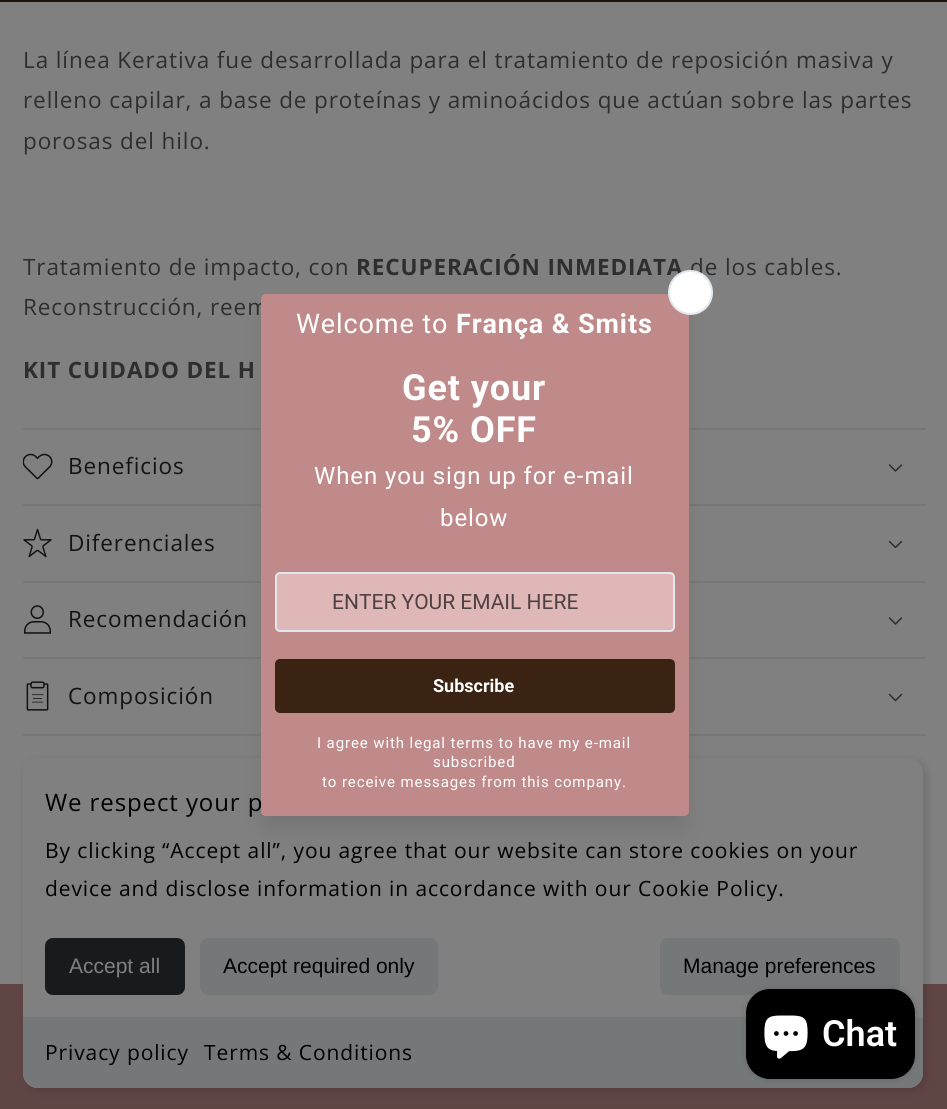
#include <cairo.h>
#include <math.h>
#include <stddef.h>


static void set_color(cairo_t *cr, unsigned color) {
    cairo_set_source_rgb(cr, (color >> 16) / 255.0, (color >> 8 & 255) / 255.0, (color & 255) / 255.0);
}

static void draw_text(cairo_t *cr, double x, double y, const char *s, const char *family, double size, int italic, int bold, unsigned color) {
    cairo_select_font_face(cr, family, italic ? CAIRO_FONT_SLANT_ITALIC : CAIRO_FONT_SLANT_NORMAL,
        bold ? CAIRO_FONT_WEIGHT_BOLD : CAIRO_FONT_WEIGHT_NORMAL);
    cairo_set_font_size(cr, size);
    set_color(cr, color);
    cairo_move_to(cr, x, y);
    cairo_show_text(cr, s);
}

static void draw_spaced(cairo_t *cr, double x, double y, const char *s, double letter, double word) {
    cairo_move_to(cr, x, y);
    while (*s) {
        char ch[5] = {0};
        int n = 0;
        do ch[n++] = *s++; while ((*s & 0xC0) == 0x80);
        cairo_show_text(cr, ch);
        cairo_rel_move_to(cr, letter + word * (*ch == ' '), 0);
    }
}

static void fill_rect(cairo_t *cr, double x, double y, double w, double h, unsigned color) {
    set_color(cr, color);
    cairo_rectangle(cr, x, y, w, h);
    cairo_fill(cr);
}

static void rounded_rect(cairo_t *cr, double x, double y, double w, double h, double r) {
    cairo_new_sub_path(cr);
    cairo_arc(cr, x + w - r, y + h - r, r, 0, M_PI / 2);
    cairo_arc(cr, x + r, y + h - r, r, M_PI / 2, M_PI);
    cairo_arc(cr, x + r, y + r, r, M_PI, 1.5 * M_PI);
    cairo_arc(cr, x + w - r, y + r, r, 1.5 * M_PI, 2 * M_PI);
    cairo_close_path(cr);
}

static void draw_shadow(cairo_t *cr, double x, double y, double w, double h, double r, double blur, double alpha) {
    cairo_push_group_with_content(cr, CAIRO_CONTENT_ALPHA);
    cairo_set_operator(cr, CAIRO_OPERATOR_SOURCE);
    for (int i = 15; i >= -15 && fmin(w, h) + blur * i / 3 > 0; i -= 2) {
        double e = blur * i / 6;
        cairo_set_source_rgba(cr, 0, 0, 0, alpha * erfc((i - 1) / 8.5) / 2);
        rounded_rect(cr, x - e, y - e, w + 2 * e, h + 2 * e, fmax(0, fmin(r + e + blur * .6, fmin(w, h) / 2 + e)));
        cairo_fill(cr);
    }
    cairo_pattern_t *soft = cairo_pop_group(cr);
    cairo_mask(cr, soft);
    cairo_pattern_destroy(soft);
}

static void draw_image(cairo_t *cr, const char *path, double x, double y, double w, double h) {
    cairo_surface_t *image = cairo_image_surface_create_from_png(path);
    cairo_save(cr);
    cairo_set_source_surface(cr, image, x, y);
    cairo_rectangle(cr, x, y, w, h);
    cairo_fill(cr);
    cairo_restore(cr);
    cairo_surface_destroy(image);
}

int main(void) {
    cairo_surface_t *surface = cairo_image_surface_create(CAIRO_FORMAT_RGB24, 947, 1109);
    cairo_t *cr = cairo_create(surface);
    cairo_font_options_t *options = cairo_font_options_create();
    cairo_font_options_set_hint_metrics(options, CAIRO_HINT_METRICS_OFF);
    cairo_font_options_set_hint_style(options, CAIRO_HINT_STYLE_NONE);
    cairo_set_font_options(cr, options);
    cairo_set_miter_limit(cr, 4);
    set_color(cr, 0x808080);
    cairo_paint(cr);
    fill_rect(cr, 0, 0, 947, 2, 0x1E120A);
    cairo_select_font_face(cr, "Open Sans", CAIRO_FONT_SLANT_NORMAL, CAIRO_FONT_WEIGHT_NORMAL);
    cairo_set_font_size(cr, 22.5);
    set_color(cr, 0x2E2E2E);
    draw_spaced(cr, 23, 68, "La línea Kerativa fue desarrollada para el tratamiento de reposición masiva y", 0.9, 0);
    draw_spaced(cr, 23, 108, "relleno capilar, a base de proteínas y aminoácidos que actúan sobre las partes", 0.9, 0);
    draw_spaced(cr, 23, 149, "porosas del hilo.", 0.9, 0);
    draw_spaced(cr, 23, 275, "Tratamiento de impacto, con", 0.9, 0);
    cairo_select_font_face(cr, "Open Sans", CAIRO_FONT_SLANT_NORMAL, CAIRO_FONT_WEIGHT_BOLD);
    draw_spaced(cr, 356, 275, "RECUPERACIÓN INMEDIATA", 0.9, 0);
    cairo_select_font_face(cr, "Open Sans", CAIRO_FONT_SLANT_NORMAL, CAIRO_FONT_WEIGHT_NORMAL);
    draw_spaced(cr, 690, 275, "de los cables.", 0.9, 0);
    draw_spaced(cr, 23, 315, "Reconstrucción, reem", 0.9, 0);
    cairo_select_font_face(cr, "Open Sans", CAIRO_FONT_SLANT_NORMAL, CAIRO_FONT_WEIGHT_BOLD);
    draw_spaced(cr, 23, 378, "KIT CUIDADO DEL H", 0.9, 0);
    fill_rect(cr, 23, 428, 903, 2, 0x777777);
    fill_rect(cr, 23, 504, 903, 2, 0x777777);
    draw_image(cr, "assets/img1.png", 23, 453, 30, 27);
    cairo_select_font_face(cr, "Open Sans", CAIRO_FONT_SLANT_NORMAL, CAIRO_FONT_WEIGHT_NORMAL);
    set_color(cr, 0x131313);
    draw_spaced(cr, 68, 474, "Beneficios", 0.9, 0);
    draw_image(cr, "assets/img2.png", 888, 464, 15, 8);
    fill_rect(cr, 23, 581, 903, 2, 0x777777);
    draw_image(cr, "assets/img3.png", 23, 528, 29, 30);
    set_color(cr, 0x131313);
    draw_spaced(cr, 68, 551, "Diferenciales", 0.9, 0);
    draw_image(cr, "assets/img4.png", 888, 540, 15, 9);
    fill_rect(cr, 23, 657, 903, 2, 0x777777);
    draw_image(cr, "assets/img5.png", 24, 605, 27, 29);
    set_color(cr, 0x131313);
    draw_spaced(cr, 68, 627, "Recomendación", 0.9, 0);
    draw_image(cr, "assets/img2.png", 888, 617, 15, 8);
    fill_rect(cr, 23, 734, 903, 2, 0x777777);
    draw_image(cr, "assets/img6.png", 26, 681, 23, 30);
    set_color(cr, 0x131313);
    draw_spaced(cr, 68, 704, "Composición", 0.9, 0);
    draw_image(cr, "assets/img4.png", 888, 693, 15, 9);
    fill_rect(cr, 0, 984, 947, 125, 0x604545);
    set_color(cr, 0x000000);
    draw_shadow(cr, 26, 761, 900, 330, 15, 4.5, 0.15);
    set_color(cr, 0x808080);
    rounded_rect(cr, 23, 758, 900, 330, 15);
    cairo_fill(cr);
    set_color(cr, 0x000000);
    draw_shadow(cr, 266, 314, 418, 513, 0, 11, 0.1);
    set_color(cr, 0xC08A8A);
    rounded_rect(cr, 261, 294, 428, 522, 5);
    cairo_fill(cr);
    set_color(cr, 0xFFFFFF);
    cairo_arc(cr, 690.5, 292.5, 21.5, 0, 2 * M_PI);
    cairo_fill_preserve(cr);
    set_color(cr, 0xE2E8F0);
    cairo_stroke(cr);
    cairo_select_font_face(cr, "Roboto", CAIRO_FONT_SLANT_NORMAL, CAIRO_FONT_WEIGHT_NORMAL);
    cairo_set_font_size(cr, 27);
    set_color(cr, 0xFFFFFF);
    draw_spaced(cr, 296, 333, "Welcome to", 0.9, 0);
    cairo_select_font_face(cr, "Roboto", CAIRO_FONT_SLANT_NORMAL, CAIRO_FONT_WEIGHT_BOLD);
    draw_spaced(cr, 456, 333, "França & Smits", 0.9, 0);
    cairo_set_font_size(cr, 36);
    draw_spaced(cr, 402, 400, "Get your", 0.9, 0);
    draw_spaced(cr, 411, 442, "5% OFF", 0.9, 0);
    cairo_select_font_face(cr, "Roboto", CAIRO_FONT_SLANT_NORMAL, CAIRO_FONT_WEIGHT_NORMAL);
    cairo_set_font_size(cr, 24);
    draw_spaced(cr, 314, 484, "When you sign up for e-mail", 0.9, 0);
    draw_spaced(cr, 440, 526, "below", 0.9, 0);
    set_color(cr, 0xE0B7B7);
    rounded_rect(cr, 276, 573, 398, 58, 4);
    cairo_fill_preserve(cr);
    set_color(cr, 0xE2E8F0);
    cairo_stroke(cr);
    draw_text(cr, 332, 609, "ENTER YOUR EMAIL HERE", "Roboto", 21, 0, 0, 0x4F4141);
    set_color(cr, 0x3B2314);
    rounded_rect(cr, 275, 659, 400, 54, 5);
    cairo_fill(cr);
    draw_text(cr, 433, 692, "Subscribe", "Roboto", 18, 0, 1, 0xFFFFFF);
    cairo_select_font_face(cr, "Roboto", CAIRO_FONT_SLANT_NORMAL, CAIRO_FONT_WEIGHT_NORMAL);
    cairo_set_font_size(cr, 15);
    draw_spaced(cr, 317, 748, "I agree with legal terms to have my e-mail", 0.9, 0);
    draw_spaced(cr, 433, 767, "subscribed", 0.9, 0);
    draw_spaced(cr, 322, 787, "to receive messages from this company.", 0.9, 0);
    cairo_select_font_face(cr, "Open Sans", CAIRO_FONT_SLANT_NORMAL, CAIRO_FONT_WEIGHT_NORMAL);
    cairo_set_font_size(cr, 24);
    set_color(cr, 0x000000);
    draw_spaced(cr, 45, 811, "We respect your p", 0.9, 0);
    cairo_set_font_size(cr, 21);
    draw_spaced(cr, 45, 858, "By clicking “Accept all”, you agree that our website can store cookies on your", 0.9, 0);
    draw_spaced(cr, 45, 896, "device and disclose information in accordance with our Cookie Policy.", 0.9, 0);
    set_color(cr, 0x181B1E);
    rounded_rect(cr, 45, 938, 140, 57, 8);
    cairo_fill(cr);
    draw_text(cr, 69, 973, "Accept all", "Liberation Sans", 21, 0, 0, 0x808080);
    set_color(cr, 0x757879);
    rounded_rect(cr, 200, 938, 238, 57, 8);
    cairo_fill(cr);
    draw_text(cr, 223, 973, "Accept required only", "Liberation Sans", 21, 0, 0, 0x000000);
    set_color(cr, 0x757879);
    rounded_rect(cr, 660, 938, 240, 57, 8);
    cairo_fill(cr);
    draw_text(cr, 683, 973, "Manage preferences", "Liberation Sans", 21, 0, 0, 0x000000);
    set_color(cr, 0x757879);
    cairo_new_path(cr);
    cairo_move_to(cr, 23, 1017);
    cairo_line_to(cr, 923, 1017);
    cairo_line_to(cr, 923, 1073);
    cairo_curve_to(cr, 923, 1081.5, 916.5, 1088, 908, 1088);
    cairo_line_to(cr, 38, 1088);
    cairo_curve_to(cr, 29.5, 1088, 23, 1081.5, 23, 1073);
    cairo_close_path(cr);
    cairo_fill(cr);
    cairo_save(cr);
    rounded_rect(cr, 23, 758, 900, 330, 15);
    cairo_clip(cr);
    fill_rect(cr, 23, 1086, 900, 2, 0x777777);
    cairo_restore(cr);
    cairo_select_font_face(cr, "Open Sans", CAIRO_FONT_SLANT_NORMAL, CAIRO_FONT_WEIGHT_NORMAL);
    set_color(cr, 0x000000);
    draw_spaced(cr, 45, 1060, "Privacy policy", 0.9, 0);
    draw_spaced(cr, 204, 1060, "Terms & Conditions", 0.9, 0);
    set_color(cr, 0x000000);
    draw_shadow(cr, 746, 989, 169, 90, 24, 4, 0.15);
    set_color(cr, 0x000000);
    rounded_rect(cr, 746, 989, 169, 90, 24);
    cairo_fill(cr);
    draw_image(cr, "assets/img7.png", 764, 1015, 44, 44);
    draw_text(cr, 822, 1046, "Chat", "Roboto SemiBold", 36, 0, 0, 0xFFFFFF);
    cairo_surface_write_to_png(surface, "output.png");
    cairo_font_options_destroy(options);
    cairo_destroy(cr);
    cairo_surface_destroy(surface);
    return 0;
}
